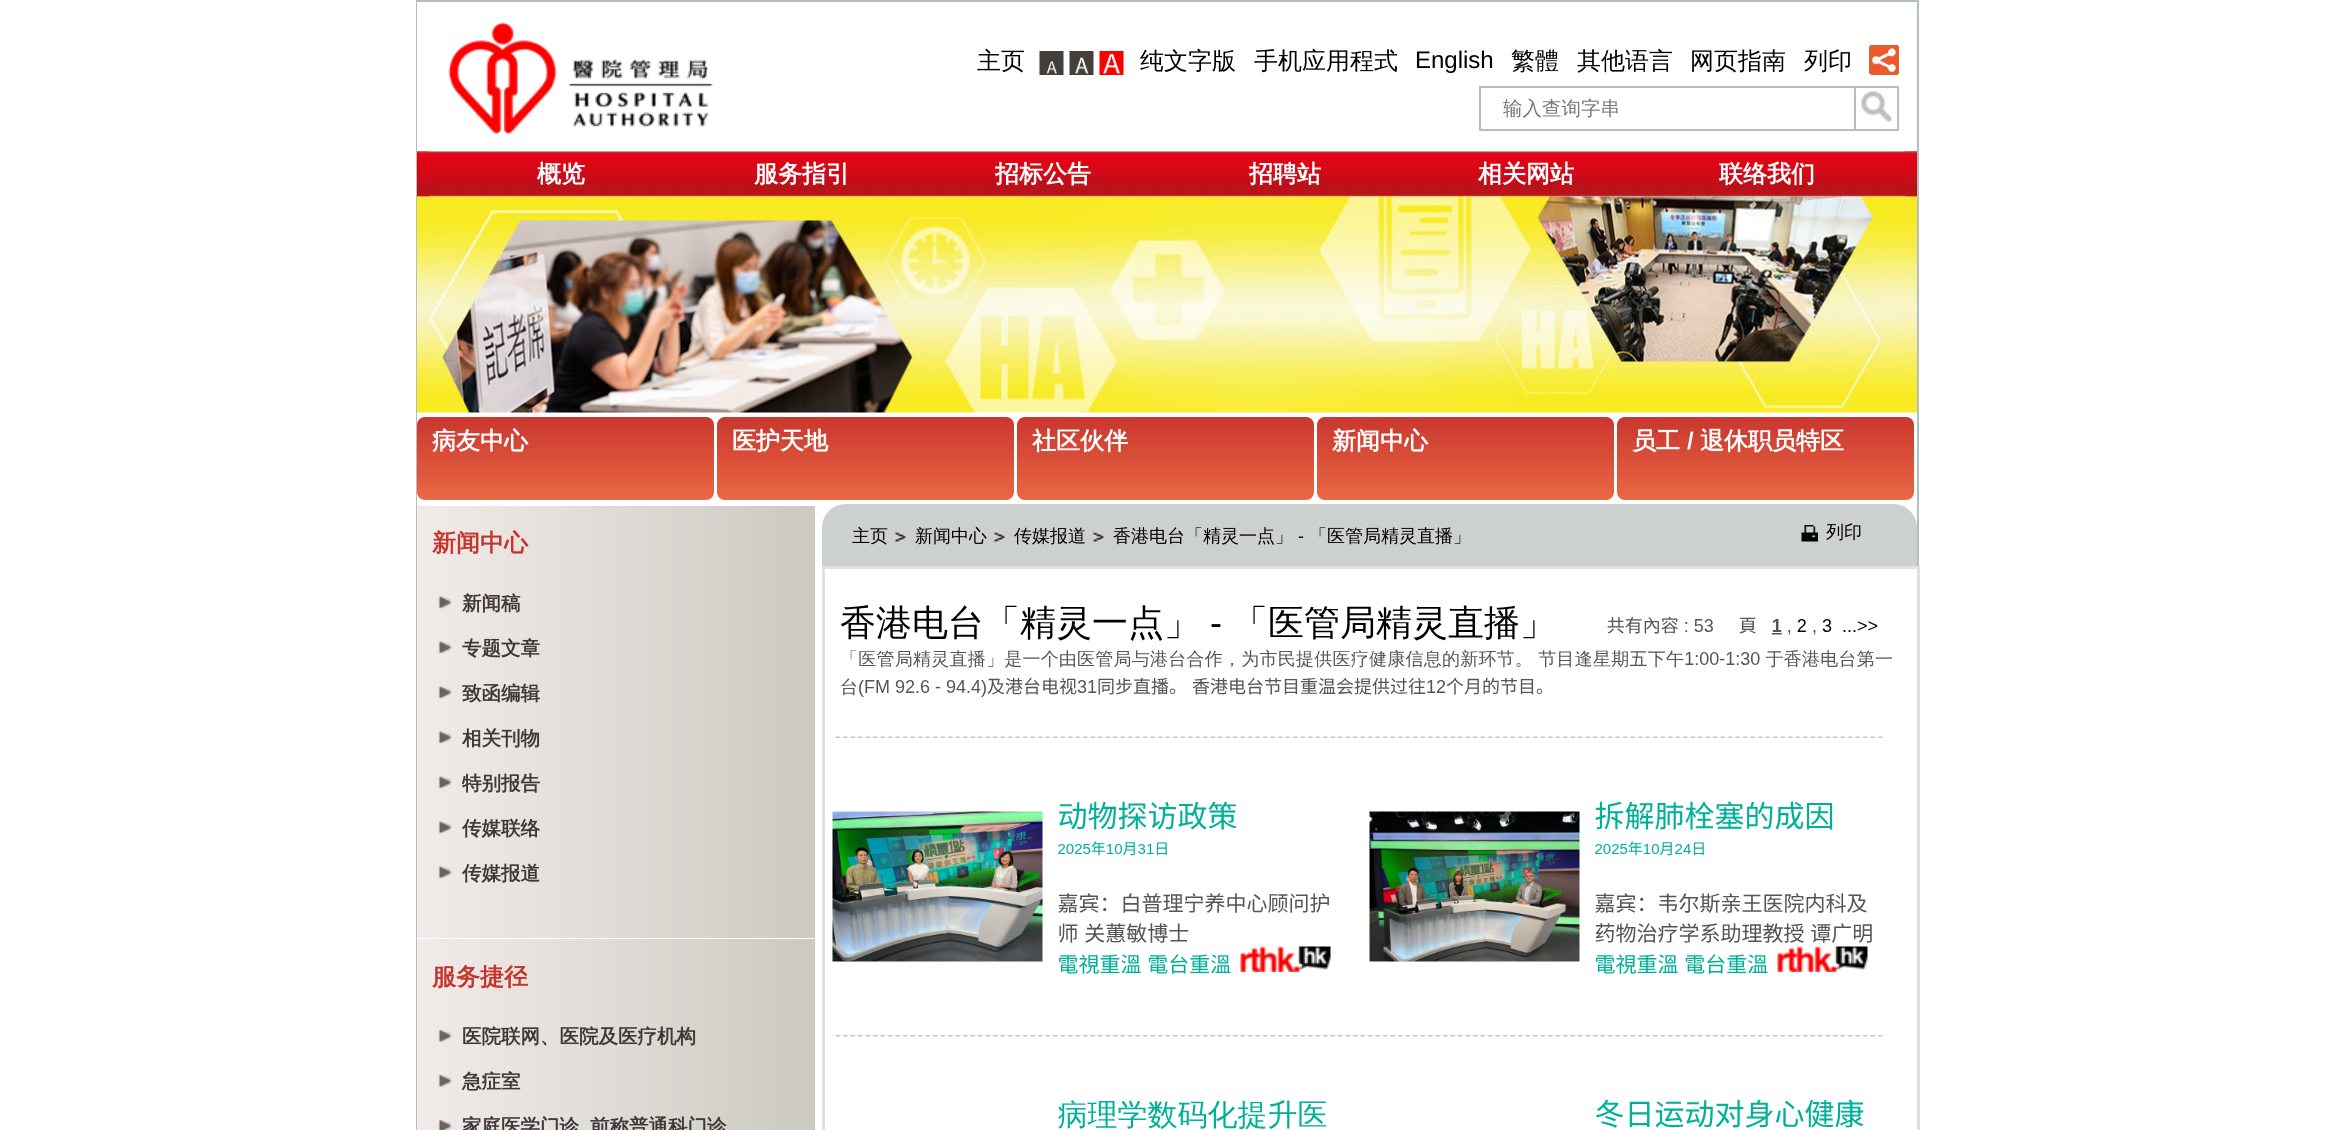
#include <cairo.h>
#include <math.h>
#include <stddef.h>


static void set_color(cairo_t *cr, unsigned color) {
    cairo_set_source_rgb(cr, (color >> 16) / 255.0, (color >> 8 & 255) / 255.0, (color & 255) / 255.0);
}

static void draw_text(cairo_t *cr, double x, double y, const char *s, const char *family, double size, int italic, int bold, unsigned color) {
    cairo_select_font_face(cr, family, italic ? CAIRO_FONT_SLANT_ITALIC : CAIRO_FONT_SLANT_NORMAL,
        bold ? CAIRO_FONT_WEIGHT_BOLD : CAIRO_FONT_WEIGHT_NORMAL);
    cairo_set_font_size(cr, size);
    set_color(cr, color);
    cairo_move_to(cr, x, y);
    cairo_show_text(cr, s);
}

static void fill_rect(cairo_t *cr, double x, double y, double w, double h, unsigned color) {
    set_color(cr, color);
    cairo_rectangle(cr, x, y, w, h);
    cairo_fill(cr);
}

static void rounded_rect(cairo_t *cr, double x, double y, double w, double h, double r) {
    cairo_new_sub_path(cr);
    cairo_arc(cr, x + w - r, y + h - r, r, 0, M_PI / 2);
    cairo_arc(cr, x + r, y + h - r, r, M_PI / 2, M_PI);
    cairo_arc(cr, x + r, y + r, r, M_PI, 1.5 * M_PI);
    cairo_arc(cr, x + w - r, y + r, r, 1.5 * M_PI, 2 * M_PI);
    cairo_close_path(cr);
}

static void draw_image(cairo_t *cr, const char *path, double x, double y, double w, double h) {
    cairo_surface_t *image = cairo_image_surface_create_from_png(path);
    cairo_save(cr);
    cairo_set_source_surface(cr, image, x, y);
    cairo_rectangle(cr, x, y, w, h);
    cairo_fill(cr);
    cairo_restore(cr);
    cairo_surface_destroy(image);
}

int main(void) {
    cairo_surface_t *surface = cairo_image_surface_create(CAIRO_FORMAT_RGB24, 2330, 1130);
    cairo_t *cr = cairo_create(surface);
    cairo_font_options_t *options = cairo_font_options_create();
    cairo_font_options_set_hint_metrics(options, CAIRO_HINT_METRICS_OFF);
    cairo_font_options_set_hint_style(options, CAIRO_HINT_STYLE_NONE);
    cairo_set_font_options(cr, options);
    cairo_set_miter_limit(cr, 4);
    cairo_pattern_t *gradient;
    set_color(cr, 0xFFFFFF);
    cairo_paint(cr);
    cairo_rectangle(cr, 417, 1, 1501, 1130);
    set_color(cr, 0xB4BFBB);
    cairo_stroke(cr);
    fill_rect(cr, 417, 2, 1, 195, 0xFFFFFF);
    draw_image(cr, "assets/img1.png", 448, 22, 265, 114);
    draw_text(cr, 977, 69, "主页", "WenQuanYi Zen Hei Medium", 24, 0, 0, 0x000000);
    draw_image(cr, "assets/img2.png", 1039, 51, 25, 24);
    draw_image(cr, "assets/img3.png", 1069, 51, 25, 24);
    draw_image(cr, "assets/img4.png", 1099, 51, 25, 24);
    draw_text(cr, 1140, 69, "纯文字版", "WenQuanYi Zen Hei Medium", 24, 0, 0, 0x000000);
    draw_text(cr, 1254, 69, "手机应用程式", "WenQuanYi Zen Hei Medium", 24, 0, 0, 0x000000);
    draw_text(cr, 1415, 68, "English", "Liberation Sans", 24, 0, 0, 0x000000);
    draw_text(cr, 1511, 69, "繁體", "WenQuanYi Zen Hei Medium", 24, 0, 0, 0x000000);
    draw_text(cr, 1577, 69, "其他语言", "WenQuanYi Zen Hei Medium", 24, 0, 0, 0x000000);
    draw_text(cr, 1690, 69, "网页指南", "WenQuanYi Zen Hei Medium", 24, 0, 0, 0x000000);
    draw_text(cr, 1804, 69, "列印", "WenQuanYi Zen Hei Medium", 24, 0, 0, 0x000000);
    draw_image(cr, "assets/img5.png", 1869, 45, 30, 30);
    fill_rect(cr, 1479, 86, 375, 2, 0xB4BFBB);
    fill_rect(cr, 1479, 129, 375, 2, 0xB4BFBB);
    fill_rect(cr, 1479, 86, 2, 45, 0xB4BFBB);
    draw_text(cr, 1503, 115, "输入查询字串", "WenQuanYi Zen Hei Medium", 19.5, 0, 0, 0x757575);
    draw_image(cr, "assets/img6.png", 1861, 91, 31, 31);
    cairo_rectangle(cr, 1855, 87, 43, 43);
    set_color(cr, 0xB4BFBB);
    cairo_stroke(cr);
    draw_image(cr, "assets/img7.png", 417, 151, 1500, 46);
    draw_image(cr, "assets/img8.png", 417, 151, 12, 46);
    draw_text(cr, 537, 182, "概览", "WenQuanYi Zen Hei", 24, 0, 1, 0xFFFFFF);
    draw_text(cr, 754, 182, "服务指引", "WenQuanYi Zen Hei", 24, 0, 1, 0xFFFFFF);
    draw_text(cr, 995, 182, "招标公告", "WenQuanYi Zen Hei", 24, 0, 1, 0xFFFFFF);
    draw_text(cr, 1249, 182, "招聘站", "WenQuanYi Zen Hei", 24, 0, 1, 0xFFFFFF);
    draw_text(cr, 1478, 182, "相关网站", "WenQuanYi Zen Hei", 24, 0, 1, 0xFFFFFF);
    draw_text(cr, 1719, 182, "联络我们", "WenQuanYi Zen Hei", 24, 0, 1, 0xFFFFFF);
    draw_image(cr, "assets/img8.png", 1905, 151, 12, 46);
    fill_rect(cr, 417, 412, 1, 92, 0xFFFFFF);
    draw_image(cr, "assets/img9.png", 417, 196, 1500, 217);
    gradient = cairo_pattern_create_linear(417, 417, 417, 500);
    cairo_pattern_add_color_stop_rgba(gradient, 0, 0.788, 0.212, 0.18, 1);
    cairo_pattern_add_color_stop_rgba(gradient, 1, 0.918, 0.408, 0.267, 1);
    cairo_set_source(cr, gradient);
    cairo_pattern_destroy(gradient);
    rounded_rect(cr, 417, 417, 297, 83, 8);
    cairo_fill(cr);
    draw_text(cr, 432, 449, "病友中心", "WenQuanYi Zen Hei", 24, 0, 1, 0xFFFFFF);
    gradient = cairo_pattern_create_linear(717, 417, 717, 500);
    cairo_pattern_add_color_stop_rgba(gradient, 0, 0.788, 0.212, 0.18, 1);
    cairo_pattern_add_color_stop_rgba(gradient, 1, 0.918, 0.408, 0.267, 1);
    cairo_set_source(cr, gradient);
    cairo_pattern_destroy(gradient);
    rounded_rect(cr, 717, 417, 297, 83, 8);
    cairo_fill(cr);
    draw_text(cr, 732, 449, "医护天地", "WenQuanYi Zen Hei", 24, 0, 1, 0xFFFFFF);
    gradient = cairo_pattern_create_linear(1017, 417, 1017, 500);
    cairo_pattern_add_color_stop_rgba(gradient, 0, 0.788, 0.212, 0.18, 1);
    cairo_pattern_add_color_stop_rgba(gradient, 1, 0.918, 0.408, 0.267, 1);
    cairo_set_source(cr, gradient);
    cairo_pattern_destroy(gradient);
    rounded_rect(cr, 1017, 417, 297, 83, 8);
    cairo_fill(cr);
    draw_text(cr, 1032, 449, "社区伙伴", "WenQuanYi Zen Hei", 24, 0, 1, 0xFFFFFF);
    gradient = cairo_pattern_create_linear(1317, 417, 1317, 500);
    cairo_pattern_add_color_stop_rgba(gradient, 0, 0.788, 0.212, 0.18, 1);
    cairo_pattern_add_color_stop_rgba(gradient, 1, 0.918, 0.408, 0.267, 1);
    cairo_set_source(cr, gradient);
    cairo_pattern_destroy(gradient);
    rounded_rect(cr, 1317, 417, 297, 83, 8);
    cairo_fill(cr);
    draw_text(cr, 1332, 449, "新闻中心", "WenQuanYi Zen Hei", 24, 0, 1, 0xFFFFFF);
    gradient = cairo_pattern_create_linear(1617, 417, 1617, 500);
    cairo_pattern_add_color_stop_rgba(gradient, 0, 0.788, 0.212, 0.18, 1);
    cairo_pattern_add_color_stop_rgba(gradient, 1, 0.918, 0.408, 0.267, 1);
    cairo_set_source(cr, gradient);
    cairo_pattern_destroy(gradient);
    rounded_rect(cr, 1617, 417, 297, 83, 8);
    cairo_fill(cr);
    draw_text(cr, 1632, 449, "员工", "WenQuanYi Zen Hei", 24, 0, 1, 0xFFFFFF);
    draw_text(cr, 1687, 449, "/", "Liberation Sans", 24, 0, 1, 0xFFFFFF);
    draw_text(cr, 1700, 449, "退休职员特区", "WenQuanYi Zen Hei", 24, 0, 1, 0xFFFFFF);
    fill_rect(cr, 417, 504, 1, 626, 0xFFFFFF);
    gradient = cairo_pattern_create_linear(417, 722, 815, 722);
    cairo_pattern_add_color_stop_rgba(gradient, 0, 0.945, 0.925, 0.914, 1);
    cairo_pattern_add_color_stop_rgba(gradient, 1, 0.8, 0.788, 0.761, 1);
    cairo_set_source(cr, gradient);
    cairo_pattern_destroy(gradient);
    cairo_rectangle(cr, 417, 506, 398, 432);
    cairo_fill(cr);
    draw_text(cr, 432, 551, "新闻中心", "WenQuanYi Zen Hei", 24, 0, 1, 0xC5342D);
    draw_image(cr, "assets/img10.png", 438, 595, 14, 15);
    draw_text(cr, 462, 610, "新闻稿", "WenQuanYi Zen Hei", 19.5, 0, 1, 0x3F3836);
    draw_image(cr, "assets/img10.png", 438, 640, 14, 15);
    draw_text(cr, 462, 655, "专题文章", "WenQuanYi Zen Hei", 19.5, 0, 1, 0x3F3836);
    draw_image(cr, "assets/img10.png", 438, 685, 14, 15);
    draw_text(cr, 462, 700, "致函编辑", "WenQuanYi Zen Hei", 19.5, 0, 1, 0x3F3836);
    draw_image(cr, "assets/img10.png", 438, 730, 14, 15);
    draw_text(cr, 462, 745, "相关刊物", "WenQuanYi Zen Hei", 19.5, 0, 1, 0x3F3836);
    draw_image(cr, "assets/img10.png", 438, 775, 14, 15);
    draw_text(cr, 462, 790, "特别报告", "WenQuanYi Zen Hei", 19.5, 0, 1, 0x3F3836);
    draw_image(cr, "assets/img10.png", 438, 820, 14, 15);
    draw_text(cr, 462, 835, "传媒联络", "WenQuanYi Zen Hei", 19.5, 0, 1, 0x3F3836);
    draw_image(cr, "assets/img10.png", 438, 865, 14, 15);
    draw_text(cr, 462, 880, "传媒报道", "WenQuanYi Zen Hei", 19.5, 0, 1, 0x3F3836);
    gradient = cairo_pattern_create_linear(417, 1121, 815, 1121);
    cairo_pattern_add_color_stop_rgba(gradient, 0, 0.945, 0.925, 0.914, 1);
    cairo_pattern_add_color_stop_rgba(gradient, 1, 0.8, 0.788, 0.761, 1);
    cairo_set_source(cr, gradient);
    cairo_pattern_destroy(gradient);
    cairo_rectangle(cr, 417, 939, 398, 191);
    cairo_fill(cr);
    draw_text(cr, 432, 985, "服务捷径", "WenQuanYi Zen Hei", 24, 0, 1, 0xC5342D);
    draw_image(cr, "assets/img11.png", 438, 1029, 14, 14);
    draw_text(cr, 462, 1043, "医院联网、医院及医疗机构", "WenQuanYi Zen Hei", 19.5, 0, 1, 0x3F3836);
    draw_image(cr, "assets/img11.png", 438, 1074, 14, 14);
    draw_text(cr, 462, 1088, "急症室", "WenQuanYi Zen Hei", 19.5, 0, 1, 0x3F3836);
    draw_image(cr, "assets/img12.png", 438, 1119, 14, 11);
    draw_text(cr, 462, 1133, "家庭医学门诊", "WenQuanYi Zen Hei", 19.5, 0, 1, 0x3F3836);
    draw_text(cr, 590, 1133, "前称普通科门诊", "WenQuanYi Zen Hei", 19.5, 0, 1, 0x3F3836);
    set_color(cr, 0xCCD0CF);
    cairo_new_path(cr);
    cairo_move_to(cr, 846, 504);
    cairo_line_to(cr, 1893, 504);
    cairo_curve_to(cr, 1906.5, 504, 1917, 514.5, 1917, 528);
    cairo_line_to(cr, 1917, 566);
    cairo_line_to(cr, 822, 566);
    cairo_line_to(cr, 822, 528);
    cairo_curve_to(cr, 822, 514.5, 832.5, 504, 846, 504);
    cairo_close_path(cr);
    cairo_fill(cr);
    draw_text(cr, 852, 542, "主页", "WenQuanYi Zen Hei Medium", 18, 0, 0, 0x000000);
    draw_image(cr, "assets/img13.png", 894, 531, 14, 12);
    draw_text(cr, 915, 542, "新闻中心", "WenQuanYi Zen Hei Medium", 18, 0, 0, 0x000000);
    draw_image(cr, "assets/img13.png", 993, 531, 14, 12);
    draw_text(cr, 1014, 542, "传媒报道", "WenQuanYi Zen Hei Medium", 18, 0, 0, 0x000000);
    draw_image(cr, "assets/img13.png", 1092, 531, 14, 12);
    draw_text(cr, 1113, 542, "香港电台「精灵一点」", "WenQuanYi Zen Hei Medium", 18, 0, 0, 0x000000);
    draw_text(cr, 1298, 542, "-", "Liberation Sans", 18, 0, 0, 0x000000);
    draw_text(cr, 1309, 542, "「医管局精灵直播」", "WenQuanYi Zen Hei Medium", 18, 0, 0, 0x000000);
    draw_image(cr, "assets/img14.png", 1801, 525, 17, 17);
    draw_text(cr, 1826, 538, "列印", "WenQuanYi Zen Hei Medium", 18, 0, 0, 0x000000);
    cairo_rectangle(cr, 823.5, 567.5, 1095, 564);
    set_color(cr, 0xE0E0E0);
    cairo_set_line_width(cr, 3);
    cairo_stroke(cr);
    draw_image(cr, "assets/img15.png", 832, 605, 1060, 525);
    cairo_surface_write_to_png(surface, "output.png");
    cairo_font_options_destroy(options);
    cairo_destroy(cr);
    cairo_surface_destroy(surface);
    return 0;
}
